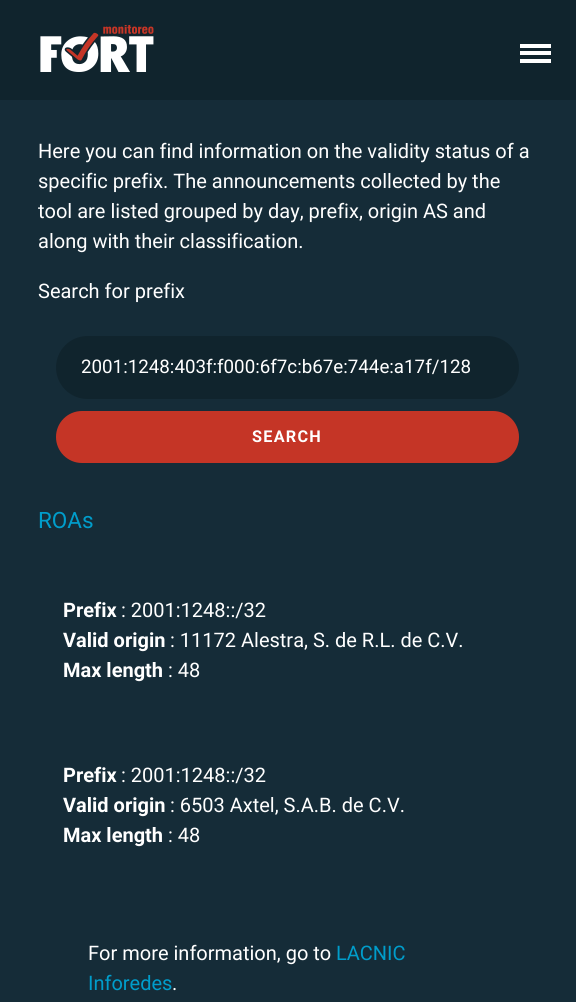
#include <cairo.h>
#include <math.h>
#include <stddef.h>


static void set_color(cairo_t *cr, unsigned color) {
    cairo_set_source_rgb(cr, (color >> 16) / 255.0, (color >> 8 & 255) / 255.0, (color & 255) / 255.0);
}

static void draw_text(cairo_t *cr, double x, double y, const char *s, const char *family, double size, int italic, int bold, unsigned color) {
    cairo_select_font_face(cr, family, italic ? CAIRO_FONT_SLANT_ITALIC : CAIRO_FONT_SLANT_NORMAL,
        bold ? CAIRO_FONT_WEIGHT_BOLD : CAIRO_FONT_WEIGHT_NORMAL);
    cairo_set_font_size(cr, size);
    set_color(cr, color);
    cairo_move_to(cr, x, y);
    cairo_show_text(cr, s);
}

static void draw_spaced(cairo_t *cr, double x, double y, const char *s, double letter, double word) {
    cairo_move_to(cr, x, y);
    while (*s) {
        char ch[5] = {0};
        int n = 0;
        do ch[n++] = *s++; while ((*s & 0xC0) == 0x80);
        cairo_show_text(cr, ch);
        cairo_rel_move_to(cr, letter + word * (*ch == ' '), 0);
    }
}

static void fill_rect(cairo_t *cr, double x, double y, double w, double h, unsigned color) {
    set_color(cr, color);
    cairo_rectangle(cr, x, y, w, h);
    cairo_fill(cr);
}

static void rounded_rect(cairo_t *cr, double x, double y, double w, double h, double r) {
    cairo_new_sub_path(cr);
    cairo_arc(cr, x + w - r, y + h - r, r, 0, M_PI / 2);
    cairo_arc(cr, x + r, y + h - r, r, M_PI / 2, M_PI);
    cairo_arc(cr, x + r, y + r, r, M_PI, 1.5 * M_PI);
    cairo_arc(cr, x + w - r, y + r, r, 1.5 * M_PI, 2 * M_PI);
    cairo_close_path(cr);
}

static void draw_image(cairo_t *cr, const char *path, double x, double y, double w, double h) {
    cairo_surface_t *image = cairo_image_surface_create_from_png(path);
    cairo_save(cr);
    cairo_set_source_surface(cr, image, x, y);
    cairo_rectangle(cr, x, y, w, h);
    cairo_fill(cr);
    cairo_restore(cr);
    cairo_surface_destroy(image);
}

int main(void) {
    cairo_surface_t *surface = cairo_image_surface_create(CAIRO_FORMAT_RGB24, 576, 1002);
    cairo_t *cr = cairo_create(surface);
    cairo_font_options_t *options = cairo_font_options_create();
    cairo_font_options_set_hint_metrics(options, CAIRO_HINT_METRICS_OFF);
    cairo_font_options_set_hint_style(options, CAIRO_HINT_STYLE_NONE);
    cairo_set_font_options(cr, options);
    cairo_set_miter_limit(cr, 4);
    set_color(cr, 0x152C38);
    cairo_paint(cr);
    fill_rect(cr, 0, 0, 576, 100, 0x10242D);
    draw_image(cr, "assets/img1.png", 40, 25, 114, 47);
    fill_rect(cr, 520, 44, 31, 4, 0xFFFFFF);
    fill_rect(cr, 520, 51, 31, 4, 0xFFFFFF);
    fill_rect(cr, 520, 59, 31, 4, 0xFFFFFF);
    draw_text(cr, 38, 158, "Here you can find information on the validity status of a", "Roboto", 20, 0, 0, 0xFFFFFF);
    draw_text(cr, 38, 188, "specific prefix. The announcements collected by the", "Roboto", 20, 0, 0, 0xFFFFFF);
    draw_text(cr, 38, 218, "tool are listed grouped by day, prefix, origin AS and", "Roboto", 20, 0, 0, 0xFFFFFF);
    draw_text(cr, 38, 248, "along with their classification.", "Roboto", 20, 0, 0, 0xFFFFFF);
    draw_text(cr, 38, 298, "Search for prefix", "Roboto", 20, 0, 0, 0xFFFFFF);
    set_color(cr, 0x10242D);
    rounded_rect(cr, 56, 336, 463, 63, 31.5);
    cairo_fill(cr);
    draw_text(cr, 81, 373, "2001:1248:403f:f000:6f7c:b67e:744e:a17f/128", "Roboto", 18.75, 0, 0, 0xFFFFFF);
    set_color(cr, 0xC53526);
    rounded_rect(cr, 56, 411, 463, 52, 26);
    cairo_fill(cr);
    cairo_select_font_face(cr, "Roboto", CAIRO_FONT_SLANT_NORMAL, CAIRO_FONT_WEIGHT_BOLD);
    cairo_set_font_size(cr, 16.25);
    set_color(cr, 0xFFFFFF);
    draw_spaced(cr, 252, 442, "SEARCH", 1.25, 0);
    draw_text(cr, 38, 528, "ROAs", "Roboto", 22.5, 0, 0, 0x009DCB);
    draw_text(cr, 63, 617, "Prefix", "Roboto", 20, 0, 1, 0xFFFFFF);
    draw_text(cr, 121, 617, ": 2001:1248::/32", "Roboto", 20, 0, 0, 0xFFFFFF);
    draw_text(cr, 63, 647, "Valid origin", "Roboto", 20, 0, 1, 0xFFFFFF);
    draw_text(cr, 170, 647, ": 11172 Alestra, S. de R.L. de C.V.", "Roboto", 20, 0, 0, 0xFFFFFF);
    draw_text(cr, 63, 677, "Max length", "Roboto", 20, 0, 1, 0xFFFFFF);
    draw_text(cr, 168, 677, ": 48", "Roboto", 20, 0, 0, 0xFFFFFF);
    draw_text(cr, 63, 782, "Prefix", "Roboto", 20, 0, 1, 0xFFFFFF);
    draw_text(cr, 121, 782, ": 2001:1248::/32", "Roboto", 20, 0, 0, 0xFFFFFF);
    draw_text(cr, 63, 812, "Valid origin", "Roboto", 20, 0, 1, 0xFFFFFF);
    draw_text(cr, 170, 812, ": 6503 Axtel, S.A.B. de C.V.", "Roboto", 20, 0, 0, 0xFFFFFF);
    draw_text(cr, 63, 842, "Max length", "Roboto", 20, 0, 1, 0xFFFFFF);
    draw_text(cr, 168, 842, ": 48", "Roboto", 20, 0, 0, 0xFFFFFF);
    draw_text(cr, 88, 960, "For more information, go to", "Roboto", 20, 0, 0, 0xFFFFFF);
    draw_text(cr, 336, 960, "LACNIC", "Roboto", 20, 0, 0, 0x009DCB);
    draw_text(cr, 88, 990, "Inforedes", "Roboto", 20, 0, 0, 0x009DCB);
    draw_text(cr, 172, 990, ".", "Roboto", 20, 0, 0, 0xFFFFFF);
    cairo_surface_write_to_png(surface, "output.png");
    cairo_font_options_destroy(options);
    cairo_destroy(cr);
    cairo_surface_destroy(surface);
    return 0;
}
